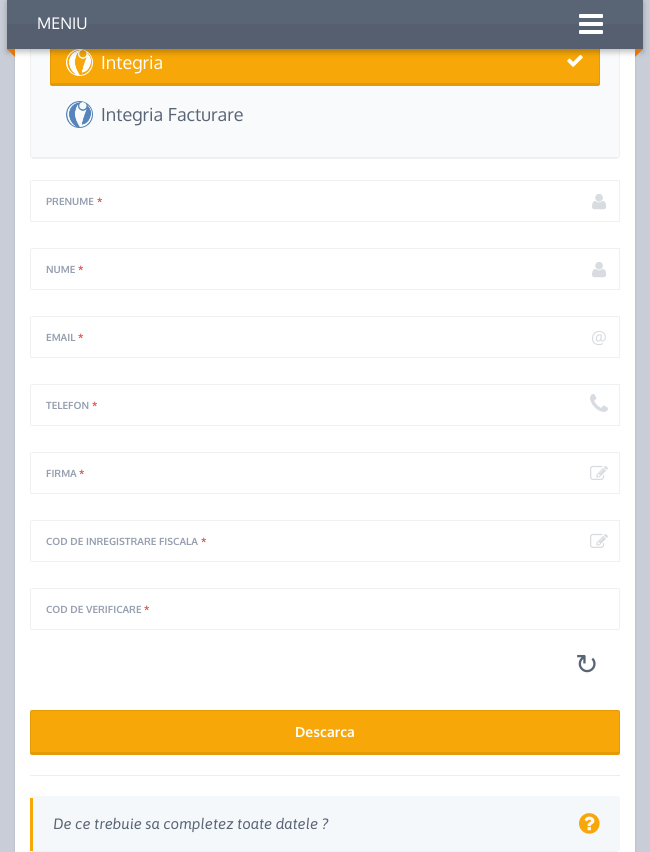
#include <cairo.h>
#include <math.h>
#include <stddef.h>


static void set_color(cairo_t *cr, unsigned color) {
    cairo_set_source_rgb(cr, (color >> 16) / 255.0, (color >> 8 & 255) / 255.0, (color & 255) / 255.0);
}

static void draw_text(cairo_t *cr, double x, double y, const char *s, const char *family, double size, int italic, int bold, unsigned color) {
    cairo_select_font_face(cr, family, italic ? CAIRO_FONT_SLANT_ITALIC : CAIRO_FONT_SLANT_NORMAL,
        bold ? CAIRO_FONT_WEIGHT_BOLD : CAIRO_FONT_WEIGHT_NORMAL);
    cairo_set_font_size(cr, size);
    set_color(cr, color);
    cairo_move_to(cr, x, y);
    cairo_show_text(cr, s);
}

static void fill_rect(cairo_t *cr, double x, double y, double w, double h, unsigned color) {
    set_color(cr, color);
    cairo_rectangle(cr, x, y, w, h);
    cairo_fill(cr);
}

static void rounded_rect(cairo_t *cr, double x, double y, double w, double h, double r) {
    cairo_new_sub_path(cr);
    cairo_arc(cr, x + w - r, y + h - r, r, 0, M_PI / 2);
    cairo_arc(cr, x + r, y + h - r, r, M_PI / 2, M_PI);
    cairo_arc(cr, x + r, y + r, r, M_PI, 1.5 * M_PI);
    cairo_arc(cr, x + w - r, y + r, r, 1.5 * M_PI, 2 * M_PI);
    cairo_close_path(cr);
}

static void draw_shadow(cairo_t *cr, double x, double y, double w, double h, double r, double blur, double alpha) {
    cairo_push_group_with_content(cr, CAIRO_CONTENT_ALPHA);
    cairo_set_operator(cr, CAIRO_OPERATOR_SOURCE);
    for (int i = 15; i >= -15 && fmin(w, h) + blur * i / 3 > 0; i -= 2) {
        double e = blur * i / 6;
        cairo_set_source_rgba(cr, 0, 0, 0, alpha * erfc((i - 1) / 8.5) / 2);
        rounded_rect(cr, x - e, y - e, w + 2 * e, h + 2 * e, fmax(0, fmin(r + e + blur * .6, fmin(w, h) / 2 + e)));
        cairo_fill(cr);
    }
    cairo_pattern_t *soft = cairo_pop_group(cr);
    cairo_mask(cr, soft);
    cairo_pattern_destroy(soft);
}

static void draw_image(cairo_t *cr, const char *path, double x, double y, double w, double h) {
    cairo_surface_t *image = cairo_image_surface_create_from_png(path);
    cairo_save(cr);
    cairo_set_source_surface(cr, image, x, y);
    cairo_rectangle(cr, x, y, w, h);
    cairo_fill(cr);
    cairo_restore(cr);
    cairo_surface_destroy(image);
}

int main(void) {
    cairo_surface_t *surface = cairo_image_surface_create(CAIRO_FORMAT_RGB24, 650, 852);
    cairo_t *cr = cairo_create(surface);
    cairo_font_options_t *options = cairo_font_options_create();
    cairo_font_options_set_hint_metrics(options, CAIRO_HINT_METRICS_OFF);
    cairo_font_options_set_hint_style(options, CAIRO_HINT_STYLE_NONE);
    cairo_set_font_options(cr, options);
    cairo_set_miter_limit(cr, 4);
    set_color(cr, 0xC8CDD7);
    cairo_paint(cr);
    set_color(cr, 0x000000);
    draw_shadow(cr, 15, -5, 620, 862, 2, 1, 0.15);
    fill_rect(cr, 15, 49, 620, 803, 0xFFFFFF);
    set_color(cr, 0xF9FAFB);
    cairo_new_path(cr);
    cairo_move_to(cr, 34, -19);
    cairo_line_to(cr, 616, -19);
    cairo_curve_to(cr, 618, -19, 619, -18, 619, -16);
    cairo_line_to(cr, 619, 155);
    cairo_curve_to(cr, 619, 156, 618, 157, 616, 157);
    cairo_line_to(cr, 34, 157);
    cairo_curve_to(cr, 32, 157, 31, 156, 31, 155);
    cairo_line_to(cr, 31, -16);
    cairo_curve_to(cr, 31, -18, 32, -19, 34, -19);
    cairo_close_path(cr);
    cairo_fill(cr);
    rounded_rect(cr, 30.5, -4.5, 589, 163, 3.5);
    set_color(cr, 0xEEF0F2);
    cairo_set_line_width(cr, 1);
    cairo_stroke(cr);
    set_color(cr, 0xF7A707);
    cairo_new_path(cr);
    cairo_move_to(cr, 52, 40);
    cairo_line_to(cr, 598, 40);
    cairo_curve_to(cr, 599, 40, 599, 40, 599, 41);
    cairo_line_to(cr, 599, 83);
    cairo_line_to(cr, 51, 83);
    cairo_line_to(cr, 51, 41);
    cairo_close_path(cr);
    cairo_fill(cr);
    rounded_rect(cr, 50.5, 39.5, 549, 46, 1.5);
    set_color(cr, 0xE49A06);
    cairo_stroke(cr);
    draw_image(cr, "assets/img2.png", 66, 49, 27, 27);
    draw_image(cr, "assets/img3.png", 567, 54, 16, 13);
    set_color(cr, 0x000000);
    draw_shadow(cr, 7, 2, 636, 50, 0, 3, 0.25);
    fill_rect(cr, 7, 0, 636, 24, 0x596475);
    fill_rect(cr, 7, 24, 636, 25, 0x555F6F);
    draw_text(cr, 37, 29, "MENIU", "Oxygen", 16, 0, 0, 0xFFFFFF);
    draw_image(cr, "assets/img1.png", 579, 14, 24, 20);
    set_color(cr, 0xE47506);
    cairo_new_path(cr);
    cairo_move_to(cr, 7, 49);
    cairo_line_to(cr, 15, 49);
    cairo_line_to(cr, 15, 57);
    cairo_close_path(cr);
    cairo_fill(cr);
    cairo_new_path(cr);
    cairo_move_to(cr, 635, 49);
    cairo_line_to(cr, 643, 49);
    cairo_line_to(cr, 635, 57);
    cairo_close_path(cr);
    cairo_fill(cr);
    fill_rect(cr, 32, 157, 586, 1, 0xEEF0F2);
    fill_rect(cr, 51, 83, 548, 2, 0xE49A06);
    draw_text(cr, 101, 69, "Integria", "Oxygen", 18, 0, 0, 0xFFFFFF);
    draw_image(cr, "assets/img4.png", 66, 101, 27, 27);
    draw_image(cr, "assets/img5.png", 66, 101, 27, 27);
    draw_text(cr, 101, 121, "Integria Facturare", "Oxygen", 18, 0, 0, 0x596475);
    cairo_new_path(cr);
    cairo_move_to(cr, 32, 180.5);
    cairo_line_to(cr, 619.5, 180.5);
    cairo_line_to(cr, 619.5, 221.5);
    cairo_line_to(cr, 32, 221.5);
    cairo_curve_to(cr, 31, 221.5, 30.5, 221, 30.5, 220);
    cairo_line_to(cr, 30.5, 182);
    cairo_curve_to(cr, 30.5, 181, 31, 180.5, 32, 180.5);
    cairo_close_path(cr);
    set_color(cr, 0xEEF0F2);
    cairo_stroke(cr);
    draw_image(cr, "assets/img6.png", 592, 194, 15, 16);
    draw_text(cr, 46, 205, "PRENUME", "Oxygen", 10, 0, 1, 0x959FAF);
    draw_text(cr, 97, 205, "*", "Oxygen", 10, 0, 1, 0xD9534F);
    cairo_new_path(cr);
    cairo_move_to(cr, 32, 248.5);
    cairo_line_to(cr, 619.5, 248.5);
    cairo_line_to(cr, 619.5, 289.5);
    cairo_line_to(cr, 32, 289.5);
    cairo_curve_to(cr, 31, 289.5, 30.5, 289, 30.5, 288);
    cairo_line_to(cr, 30.5, 250);
    cairo_curve_to(cr, 30.5, 249, 31, 248.5, 32, 248.5);
    cairo_close_path(cr);
    set_color(cr, 0xEEF0F2);
    cairo_stroke(cr);
    draw_image(cr, "assets/img6.png", 592, 262, 15, 16);
    draw_text(cr, 46, 273, "NUME", "Oxygen", 10, 0, 1, 0x959FAF);
    draw_text(cr, 78, 273, "*", "Oxygen", 10, 0, 1, 0xD9534F);
    cairo_new_path(cr);
    cairo_move_to(cr, 32, 316.5);
    cairo_line_to(cr, 619.5, 316.5);
    cairo_line_to(cr, 619.5, 357.5);
    cairo_line_to(cr, 32, 357.5);
    cairo_curve_to(cr, 31, 357.5, 30.5, 357, 30.5, 356);
    cairo_line_to(cr, 30.5, 318);
    cairo_curve_to(cr, 30.5, 317, 31, 316.5, 32, 316.5);
    cairo_close_path(cr);
    set_color(cr, 0xEEF0F2);
    cairo_stroke(cr);
    draw_text(cr, 46, 341, "EMAIL", "Oxygen", 10, 0, 1, 0x959FAF);
    draw_text(cr, 78, 341, "*", "Oxygen", 10, 0, 1, 0xD9534F);
    draw_text(cr, 591, 344, "@", "Oxygen", 18, 0, 0, 0xD8DCE1);
    cairo_new_path(cr);
    cairo_move_to(cr, 32, 384.5);
    cairo_line_to(cr, 619.5, 384.5);
    cairo_line_to(cr, 619.5, 425.5);
    cairo_line_to(cr, 32, 425.5);
    cairo_curve_to(cr, 31, 425.5, 30.5, 425, 30.5, 424);
    cairo_line_to(cr, 30.5, 386);
    cairo_curve_to(cr, 30.5, 385, 31, 384.5, 32, 384.5);
    cairo_close_path(cr);
    set_color(cr, 0xEEF0F2);
    cairo_stroke(cr);
    draw_image(cr, "assets/img7.png", 590, 394, 18, 18);
    draw_text(cr, 46, 409, "TELEFON", "Oxygen", 10, 0, 1, 0x959FAF);
    draw_text(cr, 92, 409, "*", "Oxygen", 10, 0, 1, 0xD9534F);
    cairo_new_path(cr);
    cairo_move_to(cr, 32, 452.5);
    cairo_line_to(cr, 619.5, 452.5);
    cairo_line_to(cr, 619.5, 493.5);
    cairo_line_to(cr, 32, 493.5);
    cairo_curve_to(cr, 31, 493.5, 30.5, 493, 30.5, 492);
    cairo_line_to(cr, 30.5, 454);
    cairo_curve_to(cr, 30.5, 453, 31, 452.5, 32, 452.5);
    cairo_close_path(cr);
    set_color(cr, 0xEEF0F2);
    cairo_stroke(cr);
    draw_image(cr, "assets/img8.png", 590, 465, 18, 15);
    draw_text(cr, 46, 477, "FIRMA", "Oxygen", 10, 0, 1, 0x959FAF);
    draw_text(cr, 79, 477, "*", "Oxygen", 10, 0, 1, 0xD9534F);
    cairo_new_path(cr);
    cairo_move_to(cr, 32, 520.5);
    cairo_line_to(cr, 619.5, 520.5);
    cairo_line_to(cr, 619.5, 561.5);
    cairo_line_to(cr, 32, 561.5);
    cairo_curve_to(cr, 31, 561.5, 30.5, 561, 30.5, 560);
    cairo_line_to(cr, 30.5, 522);
    cairo_curve_to(cr, 30.5, 521, 31, 520.5, 32, 520.5);
    cairo_close_path(cr);
    set_color(cr, 0xEEF0F2);
    cairo_stroke(cr);
    draw_image(cr, "assets/img8.png", 590, 533, 18, 15);
    draw_text(cr, 46, 545, "COD DE INREGISTRARE FISCALA", "Oxygen", 10, 0, 1, 0x959FAF);
    draw_text(cr, 201, 545, "*", "Oxygen", 10, 0, 1, 0xD9534F);
    rounded_rect(cr, 30.5, 588.5, 589, 41, 1.5);
    set_color(cr, 0xEEF0F2);
    cairo_stroke(cr);
    draw_text(cr, 46, 613, "COD DE VERIFICARE", "Oxygen", 10, 0, 1, 0x959FAF);
    draw_text(cr, 144, 613, "*", "Oxygen", 10, 0, 1, 0xD9534F);
    draw_text(cr, 575, 674, "↻", "DejaVu Sans", 28, 0, 0, 0x596475);
    set_color(cr, 0xF7A707);
    cairo_new_path(cr);
    cairo_move_to(cr, 32, 711);
    cairo_line_to(cr, 618, 711);
    cairo_curve_to(cr, 619, 711, 619, 711, 619, 712);
    cairo_line_to(cr, 619, 752);
    cairo_line_to(cr, 31, 752);
    cairo_line_to(cr, 31, 711);
    cairo_close_path(cr);
    cairo_fill(cr);
    rounded_rect(cr, 30.5, 710.5, 589, 44, 1.5);
    set_color(cr, 0xE49A06);
    cairo_stroke(cr);
    fill_rect(cr, 31, 752, 588, 2, 0xE49A06);
    draw_text(cr, 295, 737, "Descarca", "Oxygen", 14, 0, 1, 0xFFFFFF);
    fill_rect(cr, 30, 775, 590, 1, 0xEEEEEE);
    fill_rect(cr, 32, 851, 586, 1, 0xEEF0F2);
    set_color(cr, 0xF5F8FB);
    cairo_new_path(cr);
    cairo_move_to(cr, 33, 796);
    cairo_line_to(cr, 617, 796);
    cairo_curve_to(cr, 618.5, 796, 620, 797.5, 620, 799);
    cairo_line_to(cr, 620, 851);
    cairo_line_to(cr, 30, 851);
    cairo_line_to(cr, 30, 799);
    cairo_curve_to(cr, 30, 797.5, 31.5, 796, 33, 796);
    cairo_close_path(cr);
    cairo_fill(cr);
    fill_rect(cr, 30, 798, 3, 53, 0xF7A707);
    draw_text(cr, 53, 829, "De ce trebuie sa completez toate datele ?", "Asap", 15, 1, 0, 0x596475);
    draw_image(cr, "assets/img9.png", 579, 813, 21, 21);
    cairo_surface_write_to_png(surface, "output.png");
    cairo_font_options_destroy(options);
    cairo_destroy(cr);
    cairo_surface_destroy(surface);
    return 0;
}
